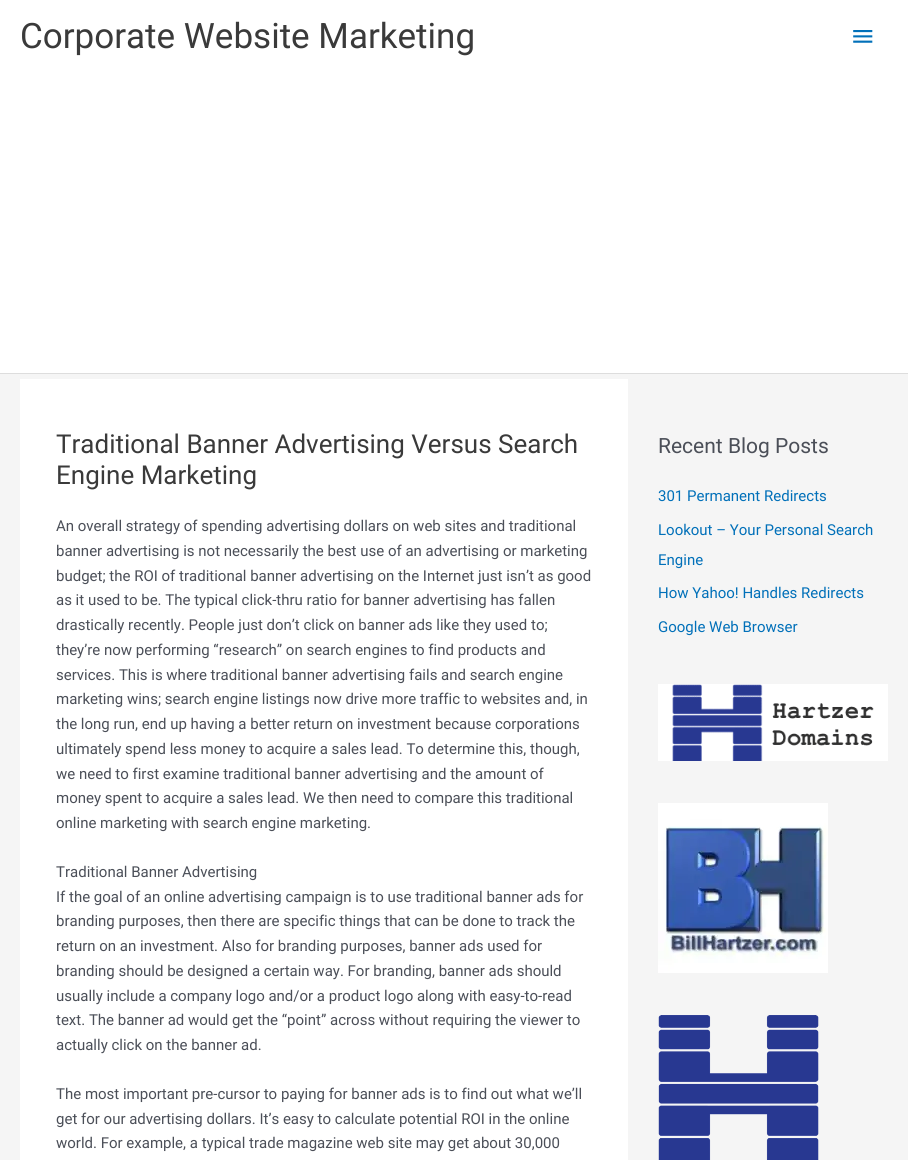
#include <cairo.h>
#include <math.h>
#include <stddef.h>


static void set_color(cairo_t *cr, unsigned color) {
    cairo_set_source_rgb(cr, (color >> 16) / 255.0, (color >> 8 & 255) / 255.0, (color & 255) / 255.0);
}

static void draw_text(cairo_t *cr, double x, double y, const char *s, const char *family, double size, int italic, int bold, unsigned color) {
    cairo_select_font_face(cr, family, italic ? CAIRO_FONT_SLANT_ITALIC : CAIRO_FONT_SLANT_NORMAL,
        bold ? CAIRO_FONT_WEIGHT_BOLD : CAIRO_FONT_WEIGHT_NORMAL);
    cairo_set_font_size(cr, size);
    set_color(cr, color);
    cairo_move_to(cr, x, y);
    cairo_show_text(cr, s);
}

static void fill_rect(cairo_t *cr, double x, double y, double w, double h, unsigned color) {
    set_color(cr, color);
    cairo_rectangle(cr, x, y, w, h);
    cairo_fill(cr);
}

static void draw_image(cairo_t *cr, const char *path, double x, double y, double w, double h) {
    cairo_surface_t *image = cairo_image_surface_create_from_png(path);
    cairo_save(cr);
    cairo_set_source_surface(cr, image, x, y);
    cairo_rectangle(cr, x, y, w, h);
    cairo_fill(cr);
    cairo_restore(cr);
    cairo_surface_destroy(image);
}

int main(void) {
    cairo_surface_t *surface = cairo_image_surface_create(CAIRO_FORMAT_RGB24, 908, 1160);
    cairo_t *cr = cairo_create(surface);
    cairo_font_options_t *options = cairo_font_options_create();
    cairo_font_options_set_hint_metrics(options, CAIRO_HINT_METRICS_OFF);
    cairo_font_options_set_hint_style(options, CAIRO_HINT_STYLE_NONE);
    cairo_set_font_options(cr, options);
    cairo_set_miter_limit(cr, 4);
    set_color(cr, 0xF5F5F5);
    cairo_paint(cr);
    fill_rect(cr, 0, 0, 908, 373, 0xFFFFFF);
    fill_rect(cr, 0, 373, 908, 1, 0xDDDDDD);
    draw_text(cr, 20, 48, "Corporate Website Marketing", "Roboto", 35, 0, 0, 0x3A3A3A);
    draw_image(cr, "assets/img1.png", 853, 30, 20, 13);
    fill_rect(cr, 20, 379, 608, 781, 0xFFFFFF);
    draw_text(cr, 56, 453, "Traditional Banner Advertising Versus Search", "Roboto", 26, 0, 0, 0x3A3A3A);
    draw_text(cr, 56, 484, "Engine Marketing", "Roboto", 26, 0, 0, 0x3A3A3A);
    draw_text(cr, 56, 531, "An overall strategy of spending advertising dollars on web sites and traditional", "Roboto", 15, 0, 0, 0x4B4F58);
    draw_text(cr, 56, 556, "banner advertising is not necessarily the best use of an advertising or marketing", "Roboto", 15, 0, 0, 0x4B4F58);
    draw_text(cr, 56, 581, "budget; the ROI of traditional banner advertising on the Internet just isn’t as good", "Roboto", 15, 0, 0, 0x4B4F58);
    draw_text(cr, 56, 605, "as it used to be. The typical click-thru ratio for banner advertising has fallen", "Roboto", 15, 0, 0, 0x4B4F58);
    draw_text(cr, 56, 630, "drastically recently. People just don’t click on banner ads like they used to;", "Roboto", 15, 0, 0, 0x4B4F58);
    draw_text(cr, 56, 655, "they’re now performing “research” on search engines to find products and", "Roboto", 15, 0, 0, 0x4B4F58);
    draw_text(cr, 56, 680, "services. This is where traditional banner advertising fails and search engine", "Roboto", 15, 0, 0, 0x4B4F58);
    draw_text(cr, 56, 704, "marketing wins; search engine listings now drive more traffic to websites and, in", "Roboto", 15, 0, 0, 0x4B4F58);
    draw_text(cr, 56, 729, "the long run, end up having a better return on investment because corporations", "Roboto", 15, 0, 0, 0x4B4F58);
    draw_text(cr, 56, 754, "ultimately spend less money to acquire a sales lead. To determine this, though,", "Roboto", 15, 0, 0, 0x4B4F58);
    draw_text(cr, 56, 779, "we need to first examine traditional banner advertising and the amount of", "Roboto", 15, 0, 0, 0x4B4F58);
    draw_text(cr, 56, 803, "money spent to acquire a sales lead. We then need to compare this traditional", "Roboto", 15, 0, 0, 0x4B4F58);
    draw_text(cr, 56, 828, "online marketing with search engine marketing.", "Roboto", 15, 0, 0, 0x4B4F58);
    draw_text(cr, 56, 877, "Traditional Banner Advertising", "Roboto", 15, 0, 0, 0x4B4F58);
    draw_text(cr, 56, 902, "If the goal of an online advertising campaign is to use traditional banner ads for", "Roboto", 15, 0, 0, 0x4B4F58);
    draw_text(cr, 56, 926, "branding purposes, then there are specific things that can be done to track the", "Roboto", 15, 0, 0, 0x4B4F58);
    draw_text(cr, 56, 951, "return on an investment. Also for branding purposes, banner ads used for", "Roboto", 15, 0, 0, 0x4B4F58);
    draw_text(cr, 56, 976, "branding should be designed a certain way. For branding, banner ads should", "Roboto", 15, 0, 0, 0x4B4F58);
    draw_text(cr, 56, 1001, "usually include a company logo and/or a product logo along with easy-to-read", "Roboto", 15, 0, 0, 0x4B4F58);
    draw_text(cr, 56, 1025, "text. The banner ad would get the “point” across without requiring the viewer to", "Roboto", 15, 0, 0, 0x4B4F58);
    draw_text(cr, 56, 1050, "actually click on the banner ad.", "Roboto", 15, 0, 0, 0x4B4F58);
    draw_text(cr, 56, 1099, "The most important pre-cursor to paying for banner ads is to find out what we’ll", "Roboto", 15, 0, 0, 0x4B4F58);
    draw_text(cr, 56, 1124, "get for our advertising dollars. It’s easy to calculate potential ROI in the online", "Roboto", 15, 0, 0, 0x4B4F58);
    draw_text(cr, 56, 1148, "world. For example, a typical trade magazine web site may get about 30,000", "Roboto", 15, 0, 0, 0x4B4F58);
    draw_text(cr, 658, 453, "Recent Blog Posts", "Roboto", 21, 0, 0, 0x4B4F58);
    draw_text(cr, 658, 501, "301 Permanent Redirects", "Roboto", 15, 0, 0, 0x0170B9);
    draw_text(cr, 658, 535, "Lookout – Your Personal Search", "Roboto", 15, 0, 0, 0x0170B9);
    draw_text(cr, 658, 565, "Engine", "Roboto", 15, 0, 0, 0x0170B9);
    draw_text(cr, 658, 598, "How Yahoo! Handles Redirects", "Roboto", 15, 0, 0, 0x0170B9);
    draw_text(cr, 658, 632, "Google Web Browser", "Roboto", 15, 0, 0, 0x0170B9);
    draw_image(cr, "assets/img2.png", 658, 684, 230, 77);
    draw_image(cr, "assets/img3.png", 658, 803, 170, 170);
    draw_image(cr, "assets/img4.png", 658, 1015, 161, 145);
    cairo_surface_write_to_png(surface, "output.png");
    cairo_font_options_destroy(options);
    cairo_destroy(cr);
    cairo_surface_destroy(surface);
    return 0;
}
